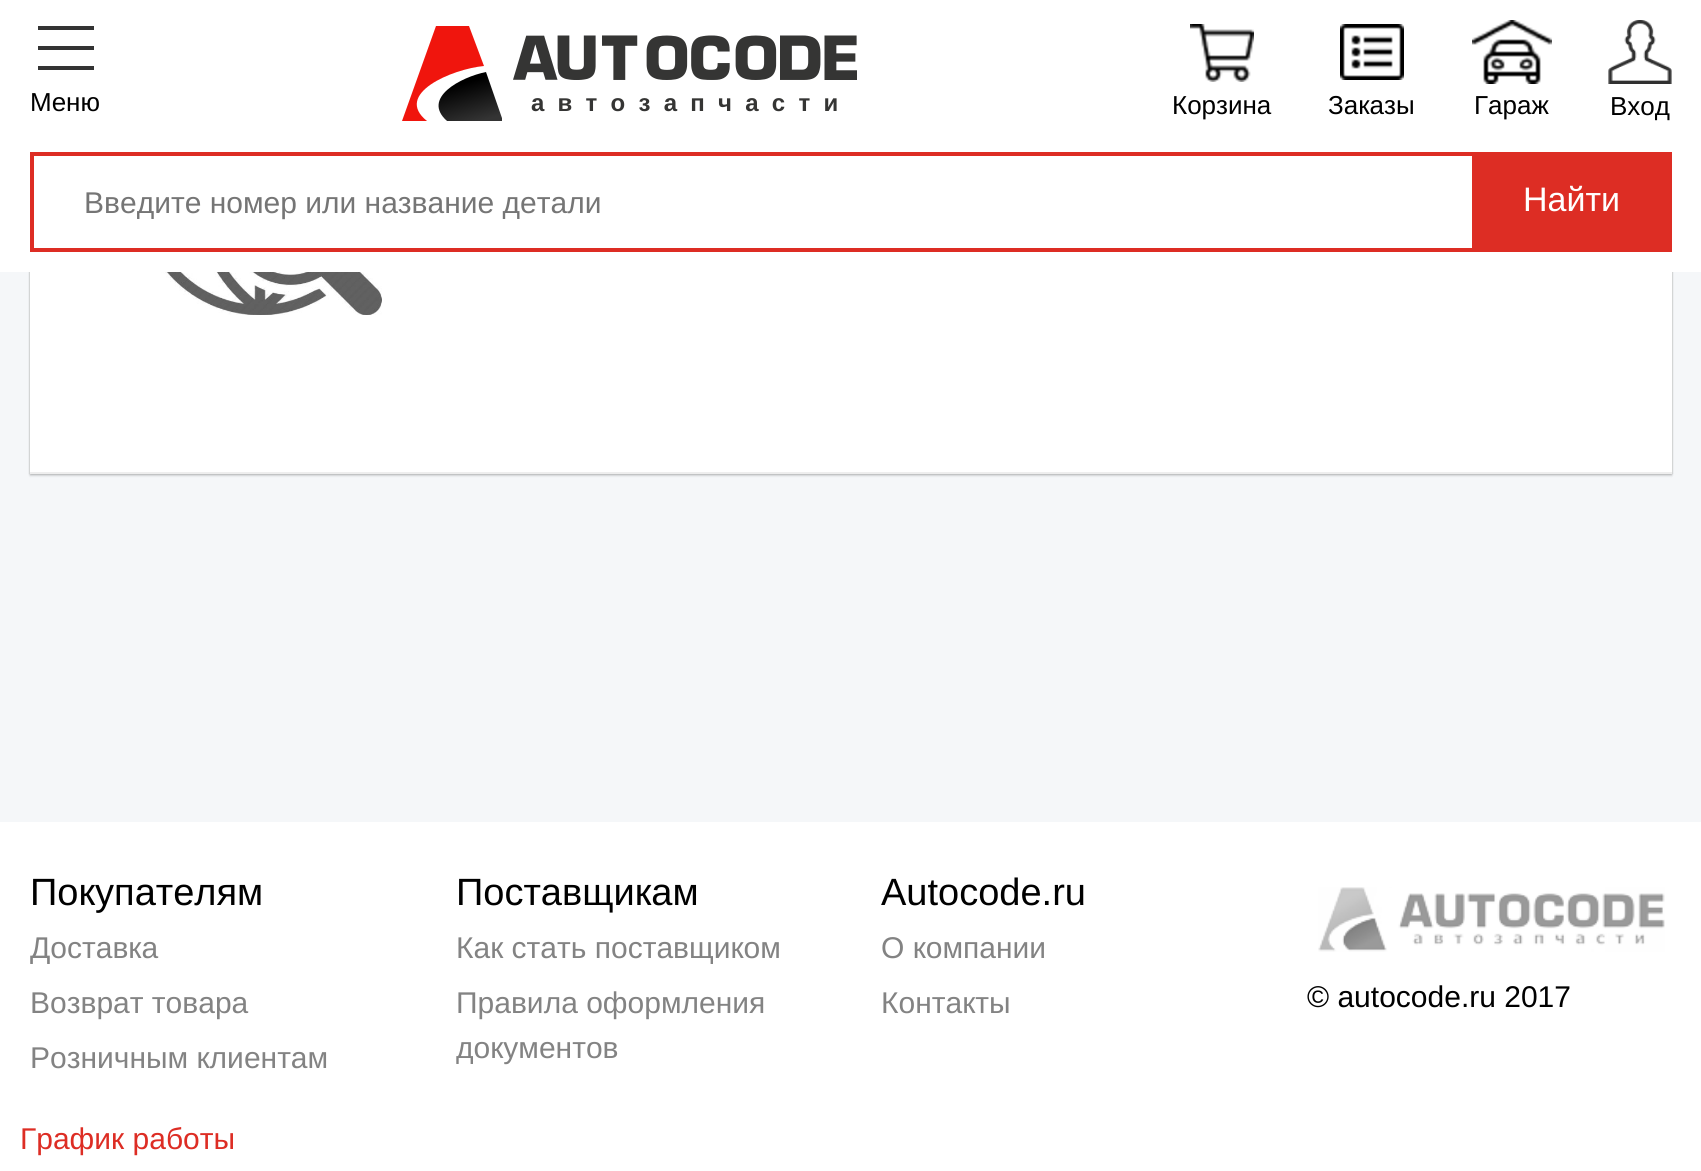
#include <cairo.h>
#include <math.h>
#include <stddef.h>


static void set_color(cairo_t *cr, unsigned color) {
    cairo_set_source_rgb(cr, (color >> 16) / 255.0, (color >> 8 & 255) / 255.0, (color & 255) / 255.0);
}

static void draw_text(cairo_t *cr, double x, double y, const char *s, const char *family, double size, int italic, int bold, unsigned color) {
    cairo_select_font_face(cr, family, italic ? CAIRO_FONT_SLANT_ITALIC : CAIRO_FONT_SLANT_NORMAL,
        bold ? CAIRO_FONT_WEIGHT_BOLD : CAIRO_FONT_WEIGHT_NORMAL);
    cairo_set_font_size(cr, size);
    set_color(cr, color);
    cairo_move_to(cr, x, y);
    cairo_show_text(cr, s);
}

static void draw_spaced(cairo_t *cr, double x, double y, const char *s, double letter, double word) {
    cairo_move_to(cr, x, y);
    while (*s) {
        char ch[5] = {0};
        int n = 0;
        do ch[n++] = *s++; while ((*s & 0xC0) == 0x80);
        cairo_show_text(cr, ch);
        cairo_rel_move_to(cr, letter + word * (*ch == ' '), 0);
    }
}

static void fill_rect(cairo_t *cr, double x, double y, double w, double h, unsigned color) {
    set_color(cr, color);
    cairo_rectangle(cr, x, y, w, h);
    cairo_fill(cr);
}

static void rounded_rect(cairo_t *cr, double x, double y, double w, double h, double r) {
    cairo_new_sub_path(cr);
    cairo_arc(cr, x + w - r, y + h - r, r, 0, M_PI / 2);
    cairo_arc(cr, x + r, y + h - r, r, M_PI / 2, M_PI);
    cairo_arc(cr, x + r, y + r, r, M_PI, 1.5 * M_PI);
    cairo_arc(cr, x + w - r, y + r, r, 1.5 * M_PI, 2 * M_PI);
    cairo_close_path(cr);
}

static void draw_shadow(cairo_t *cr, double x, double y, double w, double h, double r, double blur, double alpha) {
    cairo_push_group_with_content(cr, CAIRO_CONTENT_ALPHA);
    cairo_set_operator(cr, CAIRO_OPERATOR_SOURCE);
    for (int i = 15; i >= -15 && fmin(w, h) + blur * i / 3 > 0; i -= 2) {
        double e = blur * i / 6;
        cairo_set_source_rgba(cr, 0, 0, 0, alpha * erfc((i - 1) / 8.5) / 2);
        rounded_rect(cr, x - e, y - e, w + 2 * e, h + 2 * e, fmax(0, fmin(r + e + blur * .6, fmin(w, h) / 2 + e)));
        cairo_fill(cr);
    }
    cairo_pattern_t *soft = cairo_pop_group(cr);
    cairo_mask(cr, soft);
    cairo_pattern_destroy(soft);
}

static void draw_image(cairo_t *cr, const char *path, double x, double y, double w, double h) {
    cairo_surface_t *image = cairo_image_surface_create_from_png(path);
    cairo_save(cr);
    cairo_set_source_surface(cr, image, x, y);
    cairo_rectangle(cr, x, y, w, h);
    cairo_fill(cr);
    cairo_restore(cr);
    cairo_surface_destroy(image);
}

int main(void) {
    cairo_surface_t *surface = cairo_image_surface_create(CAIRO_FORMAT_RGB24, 1701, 1171);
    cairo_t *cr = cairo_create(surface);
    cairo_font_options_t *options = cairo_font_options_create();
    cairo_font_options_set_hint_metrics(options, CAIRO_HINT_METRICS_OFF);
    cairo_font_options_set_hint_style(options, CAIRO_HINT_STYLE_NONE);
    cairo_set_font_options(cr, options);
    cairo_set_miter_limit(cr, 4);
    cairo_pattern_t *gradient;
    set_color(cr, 0xF5F7F9);
    cairo_paint(cr);
    set_color(cr, 0x000000);
    draw_shadow(cr, 30, -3, 1642, 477, 0, 1, 0.2);
    draw_shadow(cr, 30, -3, 1642, 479, 0, 1, 0.12);
    draw_shadow(cr, 30, -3, 1642, 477, 0, 1, 0.14);
    fill_rect(cr, 30, 272, 1642, 200, 0xFFFFFF);
    fill_rect(cr, 30, 472, 1642, 2, 0xEEEEEE);
    draw_image(cr, "assets/img1.png", 137, 272, 245, 43);
    fill_rect(cr, 0, 0, 1701, 272, 0xFFFFFF);
    fill_rect(cr, 38, 26, 56, 4, 0x333333);
    fill_rect(cr, 38, 46, 56, 4, 0x333333);
    fill_rect(cr, 38, 66, 56, 4, 0x333333);
    draw_text(cr, 30, 111, "Меню", "Liberation Sans", 26, 0, 0, 0x000000);
    cairo_save(cr);
    cairo_rectangle(cr, 402, 26, 100, 100);
    cairo_clip(cr);
    gradient = cairo_pattern_create_linear(473, 123, 462, 84);
    cairo_pattern_add_color_stop_rgba(gradient, 0, 0.204, 0.204, 0.204, 1);
    cairo_pattern_add_color_stop_rgba(gradient, 1, 0, 0, 0, 1);
    cairo_set_source(cr, gradient);
    cairo_pattern_destroy(gradient);
    cairo_new_path(cr);
    cairo_move_to(cr, 486, 72);
    cairo_line_to(cr, 503, 121);
    cairo_line_to(cr, 447, 121);
    cairo_curve_to(cr, 421, 98, 461, 77, 486, 72);
    cairo_close_path(cr);
    cairo_fill(cr);
    cairo_restore(cr);
    set_color(cr, 0xF0150D);
    cairo_new_path(cr);
    cairo_move_to(cr, 436, 26);
    cairo_line_to(cr, 469, 26);
    cairo_line_to(cr, 484, 66);
    cairo_curve_to(cr, 452, 69, 393, 94, 427, 121);
    cairo_line_to(cr, 402, 121);
    cairo_close_path(cr);
    cairo_fill(cr);
    draw_text(cr, 513, 80, "AUTOCODE", "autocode", 44.5, 0, 0, 0x353534);
    cairo_select_font_face(cr, "Liberation Sans", CAIRO_FONT_SLANT_NORMAL, CAIRO_FONT_WEIGHT_BOLD);
    cairo_set_font_size(cr, 24);
    draw_spaced(cr, 531, 111, "автозапчасти", 13.25, 0);
    draw_image(cr, "assets/img2.png", 1190, 24, 64, 58);
    draw_text(cr, 1172, 114, "Корзина", "Liberation Sans", 26, 0, 0, 0x000000);
    draw_image(cr, "assets/img3.png", 1340, 24, 64, 56);
    draw_text(cr, 1328, 114, "Заказы", "Liberation Sans", 26, 0, 0, 0x000000);
    draw_image(cr, "assets/img4.png", 1472, 20, 80, 64);
    draw_text(cr, 1474, 114, "Гараж", "Liberation Sans", 26, 0, 0, 0x000000);
    draw_image(cr, "assets/img5.png", 1608, 20, 64, 64);
    draw_text(cr, 1610, 115, "Вход", "Liberation Sans", 26, 0, 0, 0x000000);
    cairo_rectangle(cr, 32, 154, 1638, 96);
    set_color(cr, 0xDD2D24);
    cairo_set_line_width(cr, 4);
    cairo_stroke(cr);
    draw_text(cr, 84, 213, "Введите номер или название детали", "Liberation Sans", 30, 0, 0, 0x757575);
    fill_rect(cr, 1472, 156, 196, 92, 0xDD2D24);
    draw_text(cr, 1523, 211, "Найти", "Liberation Sans", 34, 0, 0, 0xFFFFFF);
    fill_rect(cr, 0, 822, 1701, 349, 0xFFFFFF);
    draw_text(cr, 30, 905, "Покупателям", "Liberation Sans", 38, 0, 0, 0x000000);
    draw_text(cr, 30, 958, "Доставка", "Liberation Sans", 30, 0, 0, 0x838383);
    draw_text(cr, 30, 1013, "Возврат товара", "Liberation Sans", 30, 0, 0, 0x838383);
    draw_text(cr, 30, 1068, "Розничным клиентам", "Liberation Sans", 30, 0, 0, 0x838383);
    draw_text(cr, 456, 905, "Поставщикам", "Liberation Sans", 38, 0, 0, 0x000000);
    draw_text(cr, 456, 958, "Как стать поставщиком", "Liberation Sans", 30, 0, 0, 0x838383);
    draw_text(cr, 456, 1013, "Правила оформления", "Liberation Sans", 30, 0, 0, 0x838383);
    draw_text(cr, 456, 1058, "документов", "Liberation Sans", 30, 0, 0, 0x838383);
    draw_text(cr, 881, 905, "Autocode.ru", "Liberation Sans", 38, 0, 0, 0x000000);
    draw_text(cr, 881, 958, "О компании", "Liberation Sans", 30, 0, 0, 0x838383);
    draw_text(cr, 881, 1013, "Контакты", "Liberation Sans", 30, 0, 0, 0x838383);
    draw_image(cr, "assets/img6.png", 1318, 887, 347, 65);
    draw_text(cr, 1307, 1007, "© autocode.ru 2017", "Liberation Sans", 30, 0, 0, 0x000000);
    draw_text(cr, 20, 1149, "График работы", "Liberation Sans", 30, 0, 0, 0xDD2D24);
    cairo_surface_write_to_png(surface, "output.png");
    cairo_font_options_destroy(options);
    cairo_destroy(cr);
    cairo_surface_destroy(surface);
    return 0;
}
